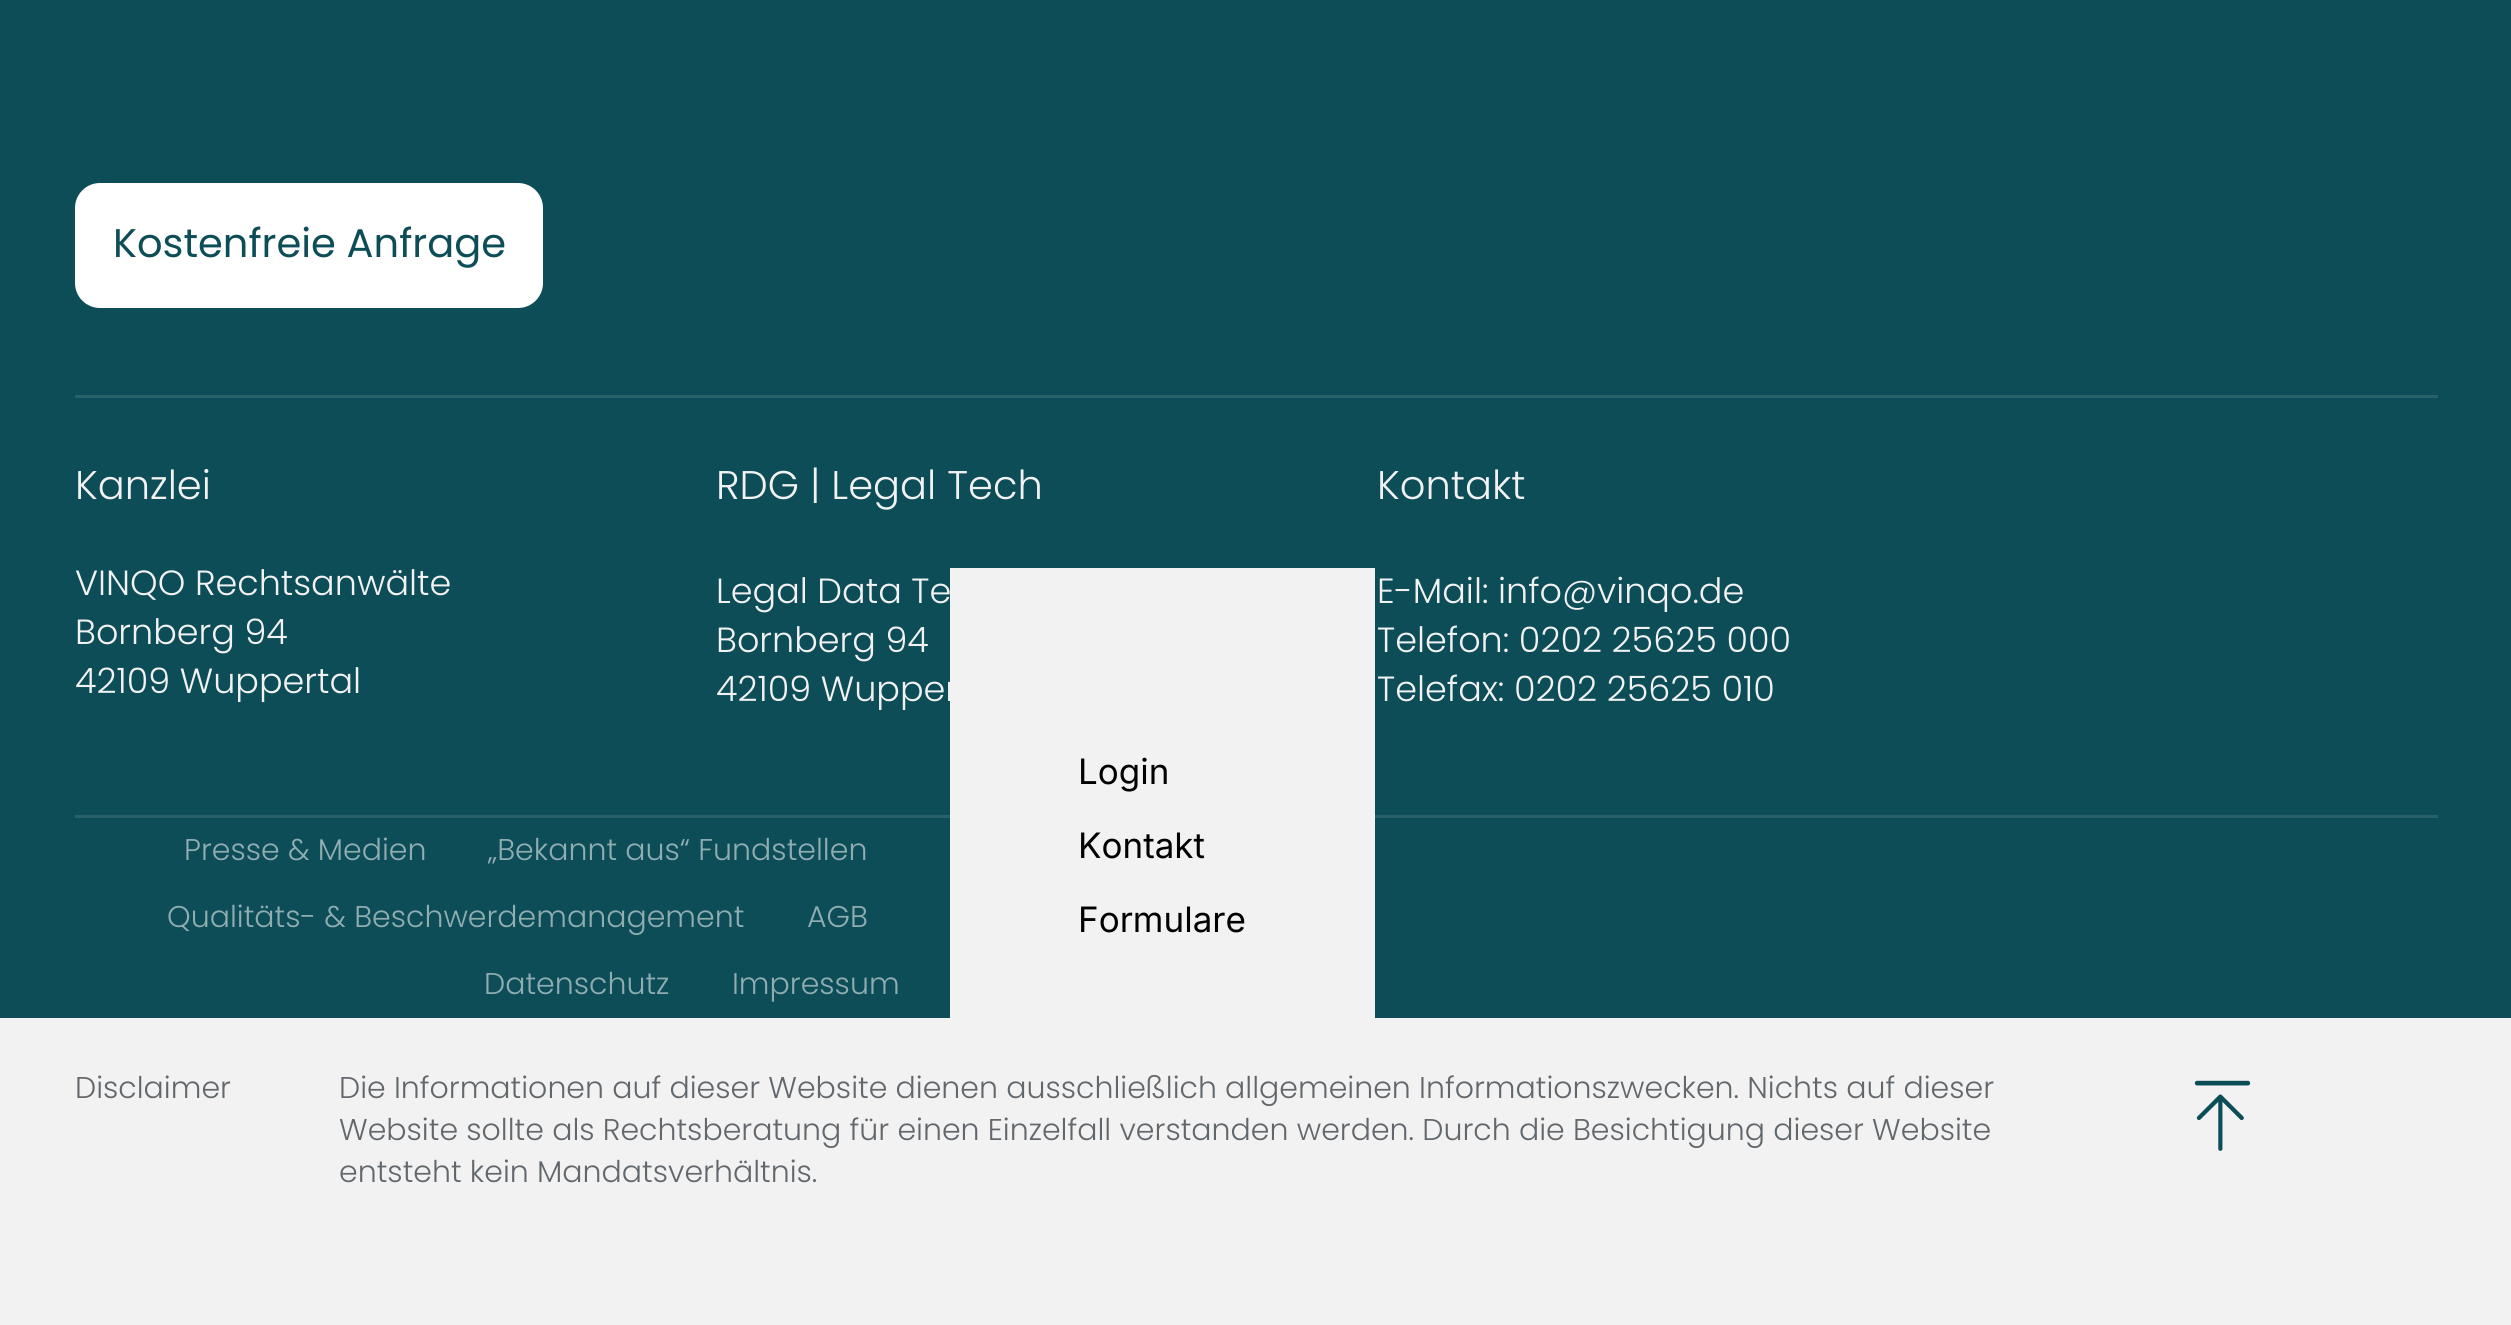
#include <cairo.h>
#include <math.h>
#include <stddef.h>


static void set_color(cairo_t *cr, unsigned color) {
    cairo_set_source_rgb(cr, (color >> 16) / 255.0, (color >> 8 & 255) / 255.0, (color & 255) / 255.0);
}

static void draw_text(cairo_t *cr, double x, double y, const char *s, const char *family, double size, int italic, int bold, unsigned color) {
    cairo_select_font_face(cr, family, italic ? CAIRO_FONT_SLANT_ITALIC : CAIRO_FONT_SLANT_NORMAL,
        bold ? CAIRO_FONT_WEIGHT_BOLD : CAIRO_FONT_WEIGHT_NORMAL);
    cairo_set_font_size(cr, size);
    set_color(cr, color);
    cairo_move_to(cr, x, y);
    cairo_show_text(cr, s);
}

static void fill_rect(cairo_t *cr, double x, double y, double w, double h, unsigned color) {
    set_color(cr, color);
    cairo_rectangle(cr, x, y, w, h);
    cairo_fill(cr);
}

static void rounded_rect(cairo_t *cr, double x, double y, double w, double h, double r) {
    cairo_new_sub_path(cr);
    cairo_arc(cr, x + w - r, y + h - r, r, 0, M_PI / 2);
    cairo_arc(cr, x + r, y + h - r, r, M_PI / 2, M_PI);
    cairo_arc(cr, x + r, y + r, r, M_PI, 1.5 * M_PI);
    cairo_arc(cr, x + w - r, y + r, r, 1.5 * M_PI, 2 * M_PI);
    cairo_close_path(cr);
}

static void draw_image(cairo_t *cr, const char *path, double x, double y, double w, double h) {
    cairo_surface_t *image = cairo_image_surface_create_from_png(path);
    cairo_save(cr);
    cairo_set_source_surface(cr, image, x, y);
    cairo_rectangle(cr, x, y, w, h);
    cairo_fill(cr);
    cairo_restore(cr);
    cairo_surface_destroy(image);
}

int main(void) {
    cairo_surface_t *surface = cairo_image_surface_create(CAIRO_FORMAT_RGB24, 2511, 1325);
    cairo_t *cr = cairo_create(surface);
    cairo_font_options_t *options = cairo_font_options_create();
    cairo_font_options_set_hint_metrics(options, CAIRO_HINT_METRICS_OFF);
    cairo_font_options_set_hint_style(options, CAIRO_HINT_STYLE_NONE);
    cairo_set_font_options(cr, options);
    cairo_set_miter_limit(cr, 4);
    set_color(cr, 0xF2F2F2);
    cairo_paint(cr);
    fill_rect(cr, 0, 0, 2511, 1018, 0x0D4D57);
    set_color(cr, 0xFFFFFF);
    rounded_rect(cr, 75, 183, 468, 125, 25);
    cairo_fill(cr);
    draw_text(cr, 113, 257, "Kostenfreie Anfrage", "Poppins", 40, 0, 0, 0x0D4D57);
    fill_rect(cr, 75, 395, 2363, 3, 0x286169);
    fill_rect(cr, 75, 815, 2363, 3, 0x286169);
    draw_text(cr, 75, 499, "Kanzlei", "Poppins Light", 40, 0, 0, 0xF2F2F2);
    draw_text(cr, 75, 595, "VINQO Rechtsanwälte", "Poppins Light", 35, 0, 0, 0xF2F2F2);
    draw_text(cr, 75, 644, "Bornberg 94", "Poppins Light", 35, 0, 0, 0xF2F2F2);
    draw_text(cr, 75, 693, "42109 Wuppertal", "Poppins Light", 35, 0, 0, 0xF2F2F2);
    draw_text(cr, 716, 499, "RDG | Legal Tech", "Poppins Light", 40, 0, 0, 0xF2F2F2);
    draw_text(cr, 716, 603, "Legal Data Te", "Poppins Light", 35, 0, 0, 0xF2F2F2);
    draw_text(cr, 716, 652, "Bornberg 94", "Poppins Light", 35, 0, 0, 0xF2F2F2);
    draw_text(cr, 716, 701, "42109 Wupper", "Poppins Light", 35, 0, 0, 0xF2F2F2);
    draw_text(cr, 1377, 499, "Kontakt", "Poppins Light", 40, 0, 0, 0xF2F2F2);
    draw_text(cr, 1377, 603, "E-Mail: info@vinqo.de", "Poppins Light", 35, 0, 0, 0xF2F2F2);
    draw_text(cr, 1377, 652, "Telefon: 0202 25625 000", "Poppins Light", 35, 0, 0, 0xF2F2F2);
    draw_text(cr, 1377, 701, "Telefax: 0202 25625 010", "Poppins Light", 35, 0, 0, 0xF2F2F2);
    draw_text(cr, 184, 860, "Presse & Medien", "Poppins Light", 30, 0, 0, 0x90ADB2);
    draw_text(cr, 488, 860, "„Bekannt aus“ Fundstellen", "Poppins Light", 30, 0, 0, 0x90ADB2);
    draw_text(cr, 167, 927, "Qualitäts- & Beschwerdemanagement", "Poppins Light", 30, 0, 0, 0x90ADB2);
    draw_text(cr, 807, 927, "AGB", "Poppins Light", 30, 0, 0, 0x90ADB2);
    draw_text(cr, 484, 994, "Datenschutz", "Poppins Light", 30, 0, 0, 0x90ADB2);
    draw_text(cr, 732, 994, "Impressum", "Poppins Light", 30, 0, 0, 0x90ADB2);
    fill_rect(cr, 950, 568, 425, 450, 0xF2F2F2);
    draw_text(cr, 1078, 784, "Login", "Inter", 35, 0, 0, 0x000000);
    draw_text(cr, 1078, 858, "Kontakt", "Inter", 35, 0, 0, 0x000000);
    draw_text(cr, 1078, 932, "Formulare", "Inter", 35, 0, 0, 0x000000);
    draw_text(cr, 75, 1098, "Disclaimer", "Poppins Light", 30, 0, 0, 0x62676C);
    draw_text(cr, 339, 1098, "Die Informationen auf dieser Website dienen ausschließlich allgemeinen Informationszwecken. Nichts auf dieser", "Poppins Light", 30, 0, 0, 0x62676C);
    draw_text(cr, 339, 1140, "Website sollte als Rechtsberatung für einen Einzelfall verstanden werden. Durch die Besichtigung dieser Website", "Poppins Light", 30, 0, 0, 0x62676C);
    draw_text(cr, 339, 1182, "entsteht kein Mandatsverhältnis.", "Poppins Light", 30, 0, 0, 0x62676C);
    draw_image(cr, "assets/img1.png", 2194, 1080, 57, 71);
    cairo_surface_write_to_png(surface, "output.png");
    cairo_font_options_destroy(options);
    cairo_destroy(cr);
    cairo_surface_destroy(surface);
    return 0;
}
